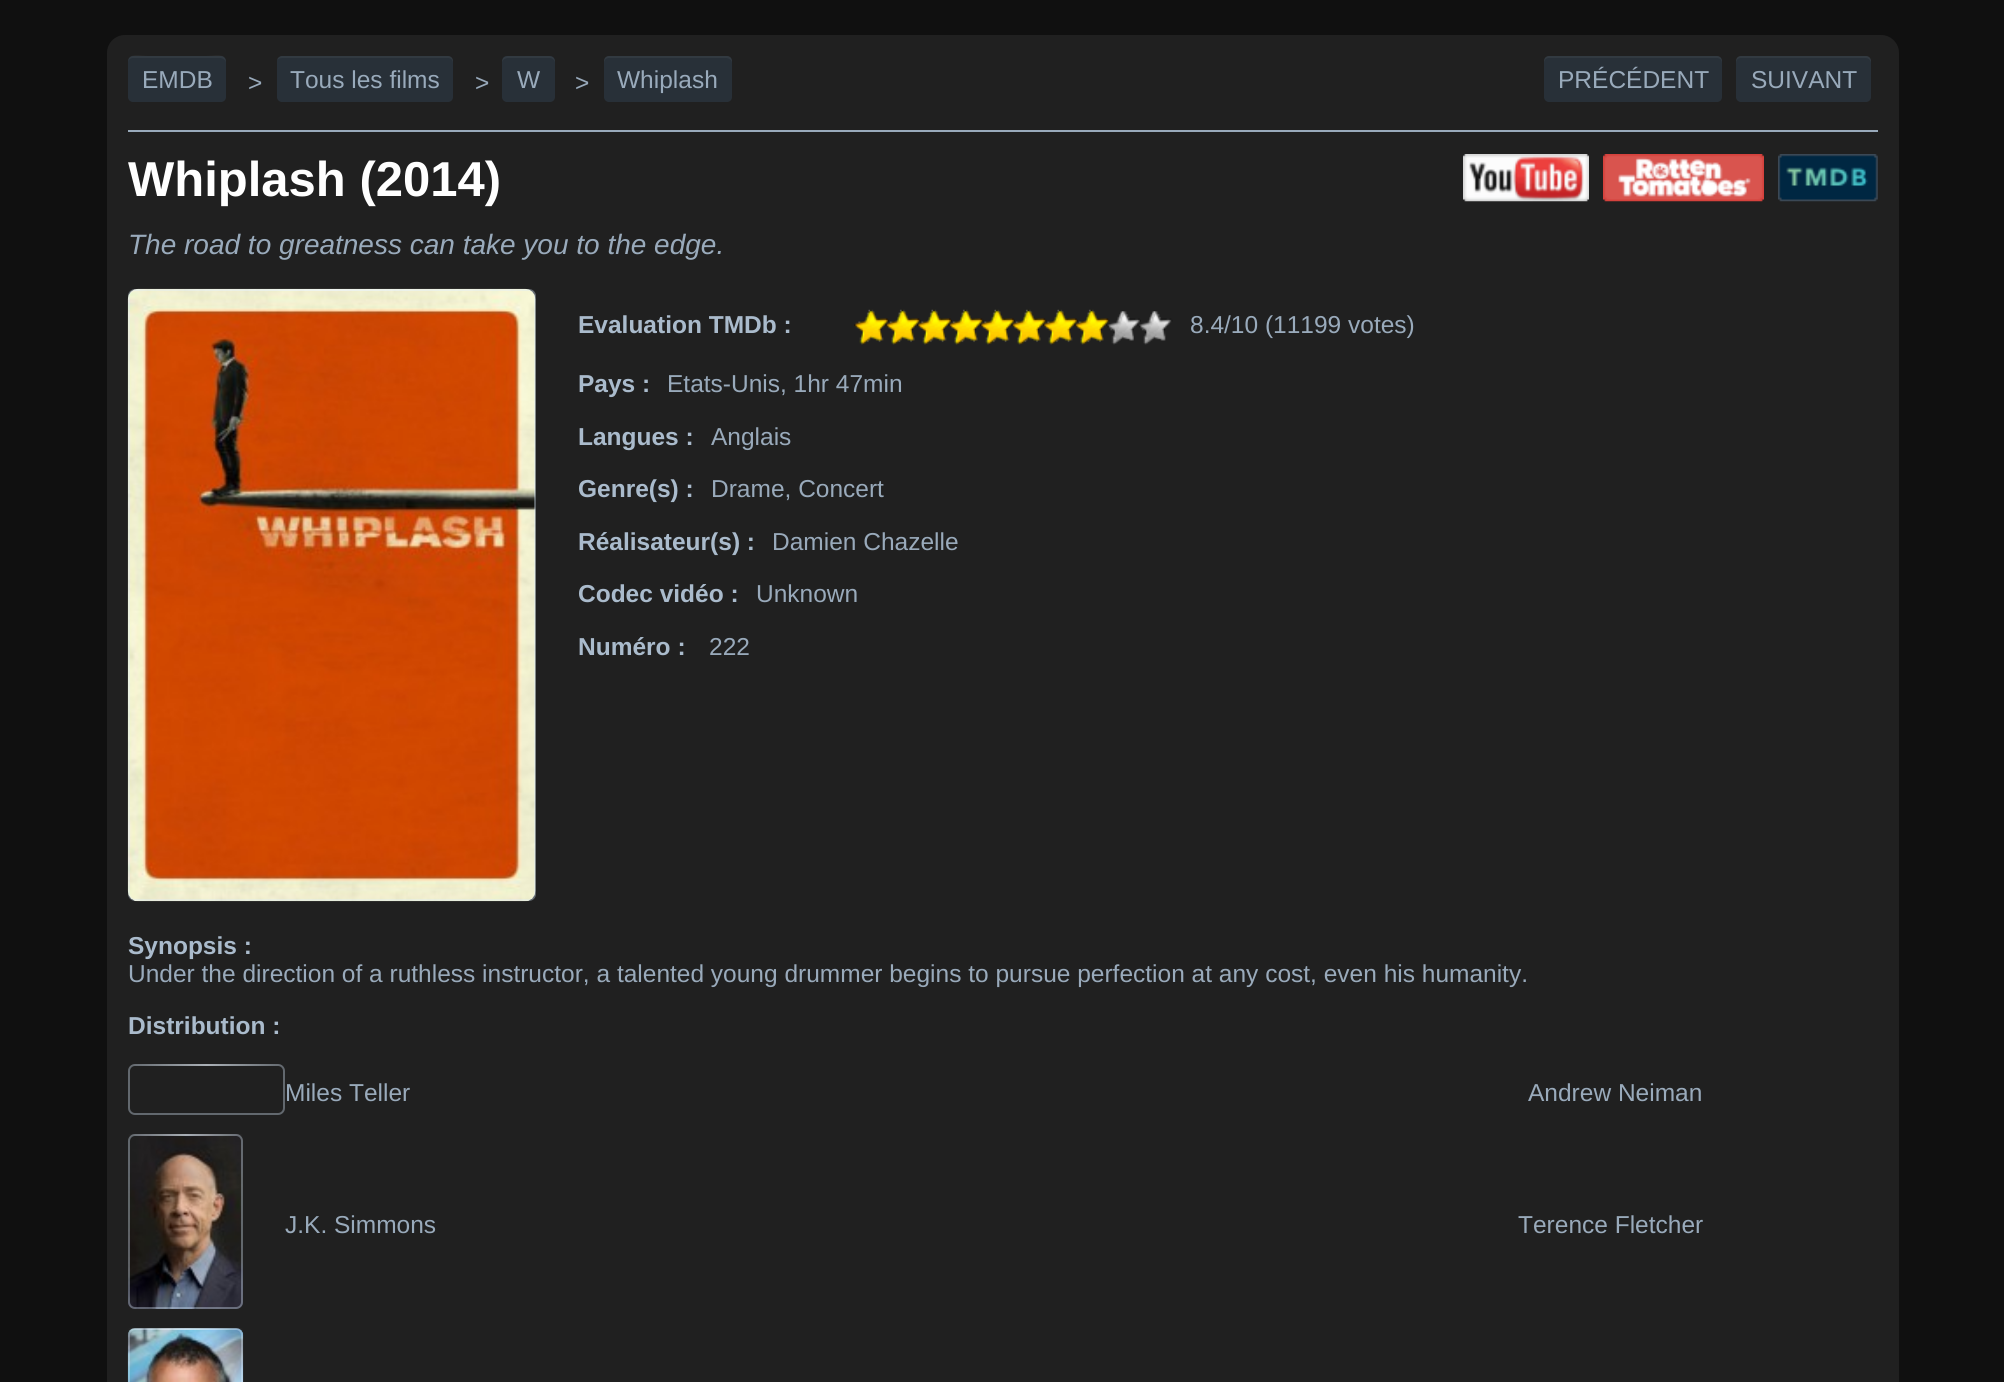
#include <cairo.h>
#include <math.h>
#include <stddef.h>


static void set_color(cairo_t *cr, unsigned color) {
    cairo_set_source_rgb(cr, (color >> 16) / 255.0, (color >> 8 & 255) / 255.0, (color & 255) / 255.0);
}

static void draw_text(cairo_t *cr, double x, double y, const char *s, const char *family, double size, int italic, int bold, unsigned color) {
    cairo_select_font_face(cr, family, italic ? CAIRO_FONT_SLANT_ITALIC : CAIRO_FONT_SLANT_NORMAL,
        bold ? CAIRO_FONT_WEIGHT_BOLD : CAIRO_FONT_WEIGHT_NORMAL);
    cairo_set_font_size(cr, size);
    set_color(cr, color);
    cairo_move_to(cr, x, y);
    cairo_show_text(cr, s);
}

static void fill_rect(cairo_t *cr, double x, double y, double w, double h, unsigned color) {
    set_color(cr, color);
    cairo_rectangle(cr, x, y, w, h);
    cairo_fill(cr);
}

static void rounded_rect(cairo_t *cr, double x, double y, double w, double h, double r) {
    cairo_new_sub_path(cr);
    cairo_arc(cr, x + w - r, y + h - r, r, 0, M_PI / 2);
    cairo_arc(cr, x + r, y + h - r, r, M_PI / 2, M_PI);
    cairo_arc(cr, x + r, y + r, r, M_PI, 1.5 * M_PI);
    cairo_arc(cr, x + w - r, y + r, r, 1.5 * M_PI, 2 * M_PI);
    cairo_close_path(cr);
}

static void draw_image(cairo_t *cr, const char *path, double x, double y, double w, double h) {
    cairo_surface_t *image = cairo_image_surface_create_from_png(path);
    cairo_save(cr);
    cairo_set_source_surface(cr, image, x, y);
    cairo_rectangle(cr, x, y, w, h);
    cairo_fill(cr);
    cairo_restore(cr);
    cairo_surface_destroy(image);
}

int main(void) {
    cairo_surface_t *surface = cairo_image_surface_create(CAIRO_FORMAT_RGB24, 2004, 1382);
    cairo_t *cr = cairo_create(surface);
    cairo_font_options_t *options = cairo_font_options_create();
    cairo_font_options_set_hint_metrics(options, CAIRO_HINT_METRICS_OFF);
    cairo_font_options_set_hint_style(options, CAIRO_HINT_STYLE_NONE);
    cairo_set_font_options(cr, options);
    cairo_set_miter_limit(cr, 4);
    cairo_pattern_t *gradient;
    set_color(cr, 0x101010);
    cairo_paint(cr);
    set_color(cr, 0x202020);
    rounded_rect(cr, 107, 35, 1792, 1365, 18);
    cairo_fill(cr);
    set_color(cr, 0x283038);
    rounded_rect(cr, 128, 56, 98, 46, 5);
    cairo_fill(cr);
    cairo_set_source_rgba(cr, 1, 1, 1, 0.05);
    cairo_new_path(cr);
    cairo_move_to(cr, 133, 58);
    cairo_line_to(cr, 220, 58);
    cairo_curve_to(cr, 223, 58, 226, 60, 226, 63);
    cairo_curve_to(cr, 226, 52, 215, 56, 206, 56);
    cairo_line_to(cr, 148, 56);
    cairo_curve_to(cr, 139, 56, 128, 52, 128, 63);
    cairo_curve_to(cr, 128, 60, 130, 58, 133, 58);
    cairo_close_path(cr);
    cairo_fill(cr);
    draw_text(cr, 142, 88, "EMDB", "Liberation Sans", 24.5, 0, 0, 0x99AABB);
    draw_text(cr, 248, 91, ">", "Liberation Sans", 24.5, 0, 0, 0x99AABB);
    set_color(cr, 0x283038);
    rounded_rect(cr, 277, 56, 176, 46, 5);
    cairo_fill(cr);
    cairo_set_source_rgba(cr, 1, 1, 1, 0.05);
    cairo_new_path(cr);
    cairo_move_to(cr, 282, 58);
    cairo_line_to(cr, 448, 58);
    cairo_curve_to(cr, 451, 58, 453, 60, 453, 63);
    cairo_line_to(cr, 453, 61);
    cairo_curve_to(cr, 453, 58, 451, 56, 448, 56);
    cairo_line_to(cr, 281, 56);
    cairo_line_to(cr, 278, 58);
    cairo_line_to(cr, 277, 60);
    cairo_curve_to(cr, 278, 59, 280, 58, 282, 58);
    cairo_close_path(cr);
    cairo_fill(cr);
    draw_text(cr, 290, 88, "Tous les films", "Liberation Sans", 24.5, 0, 0, 0x99AABB);
    draw_text(cr, 475, 91, ">", "Liberation Sans", 24.5, 0, 0, 0x99AABB);
    set_color(cr, 0x283038);
    rounded_rect(cr, 502, 56, 53, 46, 5);
    cairo_fill(cr);
    cairo_set_source_rgba(cr, 1, 1, 1, 0.05);
    cairo_new_path(cr);
    cairo_move_to(cr, 508, 58);
    cairo_line_to(cr, 550, 58);
    cairo_curve_to(cr, 552, 58, 555, 60, 555, 63);
    cairo_curve_to(cr, 555, 55, 550, 56, 543, 56);
    cairo_line_to(cr, 514, 56);
    cairo_curve_to(cr, 507, 56, 502, 55, 502, 63);
    cairo_curve_to(cr, 502, 60, 505, 58, 508, 58);
    cairo_close_path(cr);
    cairo_fill(cr);
    draw_text(cr, 517, 88, "W", "Liberation Sans", 24.5, 0, 0, 0x99AABB);
    draw_text(cr, 575, 91, ">", "Liberation Sans", 24.5, 0, 0, 0x99AABB);
    set_color(cr, 0x283038);
    rounded_rect(cr, 604, 56, 128, 46, 5);
    cairo_fill(cr);
    cairo_set_source_rgba(cr, 1, 1, 1, 0.05);
    cairo_new_path(cr);
    cairo_move_to(cr, 609, 58);
    cairo_line_to(cr, 726, 58);
    cairo_curve_to(cr, 729, 58, 732, 60, 732, 63);
    cairo_line_to(cr, 732, 61);
    cairo_curve_to(cr, 732, 58, 730, 56, 727, 56);
    cairo_line_to(cr, 609, 56);
    cairo_curve_to(cr, 606, 56, 604, 58, 604, 61);
    cairo_line_to(cr, 604, 63);
    cairo_curve_to(cr, 604, 60, 606, 58, 609, 58);
    cairo_close_path(cr);
    cairo_fill(cr);
    draw_text(cr, 617, 88, "Whiplash", "Liberation Sans", 24.5, 0, 0, 0x99AABB);
    set_color(cr, 0x283038);
    rounded_rect(cr, 1544, 56, 178, 46, 5);
    cairo_fill(cr);
    cairo_set_source_rgba(cr, 1, 1, 1, 0.05);
    cairo_new_path(cr);
    cairo_move_to(cr, 1549, 58);
    cairo_line_to(cr, 1717, 58);
    cairo_curve_to(cr, 1720, 58, 1722, 60, 1722, 63);
    cairo_line_to(cr, 1722, 61);
    cairo_curve_to(cr, 1722, 58, 1720, 56, 1717, 56);
    cairo_line_to(cr, 1549, 56);
    cairo_curve_to(cr, 1546, 56, 1544, 58, 1544, 61);
    cairo_line_to(cr, 1544, 63);
    cairo_curve_to(cr, 1544, 60, 1546, 58, 1549, 58);
    cairo_close_path(cr);
    cairo_fill(cr);
    draw_text(cr, 1558, 88, "PRÉCÉDENT", "Liberation Sans", 24.5, 0, 0, 0x99AABB);
    set_color(cr, 0x283038);
    rounded_rect(cr, 1736, 56, 135, 46, 5);
    cairo_fill(cr);
    cairo_set_source_rgba(cr, 1, 1, 1, 0.05);
    cairo_new_path(cr);
    cairo_move_to(cr, 1741, 58);
    cairo_line_to(cr, 1866, 58);
    cairo_curve_to(cr, 1868, 58, 1871, 60, 1871, 63);
    cairo_line_to(cr, 1871, 61);
    cairo_curve_to(cr, 1871, 58, 1869, 56, 1866, 56);
    cairo_line_to(cr, 1741, 56);
    cairo_curve_to(cr, 1738, 56, 1736, 58, 1736, 61);
    cairo_line_to(cr, 1736, 63);
    cairo_curve_to(cr, 1736, 60, 1738, 58, 1741, 58);
    cairo_close_path(cr);
    cairo_fill(cr);
    draw_text(cr, 1751, 88, "SUIVANT", "Liberation Sans", 24.5, 0, 0, 0x99AABB);
    fill_rect(cr, 128, 130, 1750, 2, 0x99AABB);
    draw_text(cr, 128, 196, "Whiplash (2014)", "Liberation Sans", 49, 0, 1, 0xFFFFFF);
    draw_image(cr, "assets/img1.png", 1463, 154, 126, 48);
    draw_image(cr, "assets/img2.png", 1603, 154, 161, 48);
    draw_image(cr, "assets/img3.png", 1778, 154, 100, 48);
    draw_text(cr, 128, 254, "The road to greatness can take you to the edge.", "Liberation Sans", 28, 1, 0, 0x99AABB);
    draw_image(cr, "assets/img4.png", 127, 288, 409, 614);
    gradient = cairo_pattern_create_linear(128, 290, 536, 290);
    cairo_pattern_add_color_stop_rgba(gradient, 0, 1, 1, 1, 0);
    cairo_pattern_add_color_stop_rgba(gradient, 0.5, 1, 1, 1, 0.5);
    cairo_pattern_add_color_stop_rgba(gradient, 1, 1, 1, 1, 0);
    cairo_set_source(cr, gradient);
    cairo_pattern_destroy(gradient);
    cairo_rectangle(cr, 148, 289, 363, 2);
    cairo_fill(cr);
    rounded_rect(cr, 129, 290, 406, 610, 6);
    cairo_set_source_rgba(cr, 0.867, 0.933, 1, 0.35);
    cairo_stroke(cr);
    draw_text(cr, 578, 333, "Evaluation TMDb :", "Liberation Sans", 24.5, 0, 1, 0xAABBCC);
    draw_image(cr, "assets/img5.png", 854, 309, 35, 36);
    draw_image(cr, "assets/img6.png", 885, 309, 36, 36);
    draw_image(cr, "assets/img7.png", 917, 309, 35, 36);
    draw_image(cr, "assets/img6.png", 948, 309, 36, 36);
    draw_image(cr, "assets/img8.png", 980, 309, 35, 36);
    draw_image(cr, "assets/img6.png", 1011, 309, 36, 36);
    draw_image(cr, "assets/img8.png", 1043, 309, 35, 36);
    draw_image(cr, "assets/img6.png", 1074, 309, 36, 36);
    draw_image(cr, "assets/img9.png", 1106, 311, 35, 34);
    draw_image(cr, "assets/img10.png", 1137, 311, 36, 34);
    draw_text(cr, 1190, 333, "8.4/10 (11199 votes)", "Liberation Sans", 24.5, 0, 0, 0x99AABB);
    draw_text(cr, 578, 392, "Pays :", "Liberation Sans", 24.5, 0, 1, 0xAABBCC);
    draw_text(cr, 667, 392, "Etats-Unis, 1hr 47min", "Liberation Sans", 24.5, 0, 0, 0x99AABB);
    draw_text(cr, 578, 445, "Langues :", "Liberation Sans", 24.5, 0, 1, 0xAABBCC);
    draw_text(cr, 711, 445, "Anglais", "Liberation Sans", 24.5, 0, 0, 0x99AABB);
    draw_text(cr, 578, 497, "Genre(s) :", "Liberation Sans", 24.5, 0, 1, 0xAABBCC);
    draw_text(cr, 711, 497, "Drame, Concert", "Liberation Sans", 24.5, 0, 0, 0x99AABB);
    draw_text(cr, 578, 550, "Réalisateur(s) :", "Liberation Sans", 24.5, 0, 1, 0xAABBCC);
    draw_text(cr, 772, 550, "Damien Chazelle", "Liberation Sans", 24.5, 0, 0, 0x99AABB);
    draw_text(cr, 578, 602, "Codec vidéo :", "Liberation Sans", 24.5, 0, 1, 0xAABBCC);
    draw_text(cr, 756, 602, "Unknown", "Liberation Sans", 24.5, 0, 0, 0x99AABB);
    draw_text(cr, 578, 655, "Numéro :", "Liberation Sans", 24.5, 0, 1, 0xAABBCC);
    draw_text(cr, 709, 655, "222", "Liberation Sans", 24.5, 0, 0, 0x99AABB);
    draw_text(cr, 128, 954, "Synopsis :", "Liberation Sans", 24.5, 0, 1, 0xAABBCC);
    draw_text(cr, 128, 982, "Under the direction of a ruthless instructor, a talented young drummer begins to pursue perfection at any cost, even his humanity.", "Liberation Sans", 24.5, 0, 0, 0x99AABB);
    draw_text(cr, 128, 1034, "Distribution :", "Liberation Sans", 24.5, 0, 1, 0xAABBCC);
    cairo_save(cr);
    rounded_rect(cr, 128, 1064, 157, 51, 7);
    cairo_clip(cr);
    gradient = cairo_pattern_create_linear(128, 1065, 285, 1065);
    cairo_pattern_add_color_stop_rgba(gradient, 0, 0.125, 0.125, 0.125, 1);
    cairo_pattern_add_color_stop_rgba(gradient, 0.5, 0.565, 0.565, 0.565, 1);
    cairo_pattern_add_color_stop_rgba(gradient, 1, 0.125, 0.125, 0.125, 1);
    cairo_set_source(cr, gradient);
    cairo_pattern_destroy(gradient);
    cairo_rectangle(cr, 128, 1064, 157, 2);
    cairo_fill(cr);
    cairo_restore(cr);
    rounded_rect(cr, 129, 1065, 155, 49, 6);
    cairo_set_source_rgba(cr, 0.867, 0.933, 1, 0.35);
    cairo_stroke(cr);
    draw_text(cr, 285, 1101, "Miles Teller", "Liberation Sans", 24.5, 0, 0, 0x99AABB);
    draw_text(cr, 1528, 1101, "Andrew Neiman", "Liberation Sans", 24.5, 0, 0, 0x99AABB);
    draw_image(cr, "assets/img11.png", 128, 1134, 115, 175);
    gradient = cairo_pattern_create_linear(128, 1135, 243, 1135);
    cairo_pattern_add_color_stop_rgba(gradient, 0, 1, 1, 1, 0);
    cairo_pattern_add_color_stop_rgba(gradient, 0.5, 1, 1, 1, 0.5);
    cairo_pattern_add_color_stop_rgba(gradient, 1, 1, 1, 1, 0);
    cairo_set_source(cr, gradient);
    cairo_pattern_destroy(gradient);
    cairo_rectangle(cr, 128, 1134, 115, 2);
    cairo_fill(cr);
    rounded_rect(cr, 129, 1135, 113, 173, 6);
    cairo_set_source_rgba(cr, 0.867, 0.933, 1, 0.35);
    cairo_stroke(cr);
    draw_text(cr, 285, 1233, "J.K. Simmons", "Liberation Sans", 24.5, 0, 0, 0x99AABB);
    draw_text(cr, 1518, 1233, "Terence Fletcher", "Liberation Sans", 24.5, 0, 0, 0x99AABB);
    draw_image(cr, "assets/img12.png", 127, 1328, 117, 54);
    gradient = cairo_pattern_create_linear(128, 1329, 243, 1329);
    cairo_pattern_add_color_stop_rgba(gradient, 0, 1, 1, 1, 0);
    cairo_pattern_add_color_stop_rgba(gradient, 0.5, 1, 1, 1, 0.5);
    cairo_pattern_add_color_stop_rgba(gradient, 1, 1, 1, 1, 0);
    cairo_set_source(cr, gradient);
    cairo_pattern_destroy(gradient);
    cairo_rectangle(cr, 128, 1328, 115, 2);
    cairo_fill(cr);
    rounded_rect(cr, 129, 1329, 113, 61, 6);
    cairo_set_source_rgba(cr, 0.867, 0.933, 1, 0.35);
    cairo_stroke(cr);
    cairo_surface_write_to_png(surface, "output.png");
    cairo_font_options_destroy(options);
    cairo_destroy(cr);
    cairo_surface_destroy(surface);
    return 0;
}
